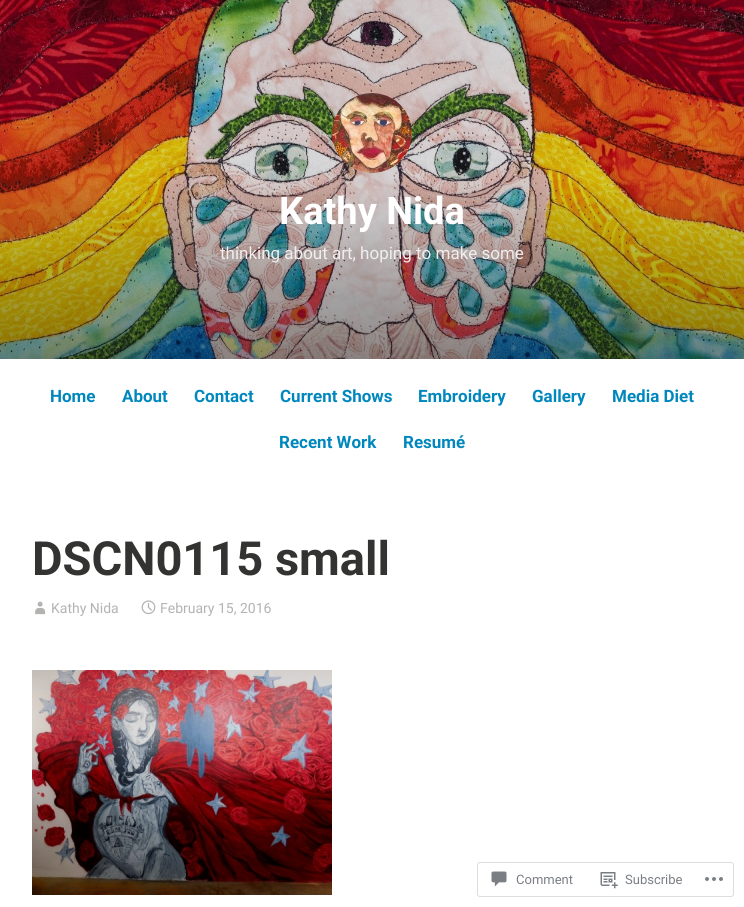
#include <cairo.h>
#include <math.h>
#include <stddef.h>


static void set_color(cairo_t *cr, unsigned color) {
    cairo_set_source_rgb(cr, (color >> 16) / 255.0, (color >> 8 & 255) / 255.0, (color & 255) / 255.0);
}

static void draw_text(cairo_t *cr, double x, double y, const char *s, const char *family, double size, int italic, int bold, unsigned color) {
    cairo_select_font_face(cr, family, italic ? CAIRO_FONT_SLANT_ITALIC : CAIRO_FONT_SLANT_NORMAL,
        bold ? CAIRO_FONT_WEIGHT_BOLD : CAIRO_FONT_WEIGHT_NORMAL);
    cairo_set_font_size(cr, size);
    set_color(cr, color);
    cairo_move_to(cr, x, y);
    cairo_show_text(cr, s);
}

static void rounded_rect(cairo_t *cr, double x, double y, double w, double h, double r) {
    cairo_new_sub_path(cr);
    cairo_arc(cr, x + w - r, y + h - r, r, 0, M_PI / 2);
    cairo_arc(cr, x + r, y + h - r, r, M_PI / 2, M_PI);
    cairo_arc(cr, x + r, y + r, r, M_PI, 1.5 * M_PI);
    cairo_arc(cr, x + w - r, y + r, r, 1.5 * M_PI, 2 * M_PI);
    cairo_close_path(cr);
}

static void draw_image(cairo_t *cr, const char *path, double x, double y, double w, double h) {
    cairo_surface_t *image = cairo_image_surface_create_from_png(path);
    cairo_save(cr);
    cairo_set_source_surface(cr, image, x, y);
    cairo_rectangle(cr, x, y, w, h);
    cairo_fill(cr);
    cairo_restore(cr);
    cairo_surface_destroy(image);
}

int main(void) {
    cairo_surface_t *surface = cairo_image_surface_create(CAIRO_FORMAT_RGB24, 744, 907);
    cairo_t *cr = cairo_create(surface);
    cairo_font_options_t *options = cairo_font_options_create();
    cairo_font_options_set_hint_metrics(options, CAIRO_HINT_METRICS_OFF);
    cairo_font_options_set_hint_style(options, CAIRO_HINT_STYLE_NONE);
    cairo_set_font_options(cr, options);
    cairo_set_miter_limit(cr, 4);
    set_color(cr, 0xFFFFFF);
    cairo_paint(cr);
    draw_image(cr, "assets/img1.png", 0, 0, 744, 359);
    draw_image(cr, "assets/img2.png", 332, 93, 80, 80);
    draw_text(cr, 279, 224, "Kathy Nida", "Roboto", 38, 0, 1, 0xFFFFFF);
    draw_text(cr, 220, 259, "thinking about art, hoping to make some", "Roboto", 17, 0, 0, 0xF0EEEE);
    draw_text(cr, 50, 402, "Home", "Roboto", 17, 0, 1, 0x0087BE);
    draw_text(cr, 122, 402, "About", "Roboto", 17, 0, 1, 0x0087BE);
    draw_text(cr, 194, 402, "Contact", "Roboto", 17, 0, 1, 0x0087BE);
    draw_text(cr, 280, 402, "Current Shows", "Roboto", 17, 0, 1, 0x0087BE);
    draw_text(cr, 418, 402, "Embroidery", "Roboto", 17, 0, 1, 0x0087BE);
    draw_text(cr, 532, 402, "Gallery", "Roboto", 17, 0, 1, 0x0087BE);
    draw_text(cr, 612, 402, "Media Diet", "Roboto", 17, 0, 1, 0x0087BE);
    draw_text(cr, 279, 448, "Recent Work", "Roboto", 17, 0, 1, 0x0087BE);
    draw_text(cr, 403, 448, "Resumé", "Roboto", 17, 0, 1, 0x0087BE);
    draw_text(cr, 32, 575, "DSCN0115 small", "Roboto", 47, 0, 1, 0x333332);
    draw_image(cr, "assets/img3.png", 35, 601, 11, 14);
    draw_text(cr, 51, 613, "Kathy Nida", "Roboto", 14, 0, 0, 0xB3B3B1);
    draw_image(cr, "assets/img4.png", 141, 600, 15, 15);
    draw_text(cr, 160, 613, "February 15, 2016", "Roboto", 14, 0, 0, 0xB3B3B1);
    draw_image(cr, "assets/img5.png", 32, 670, 300, 225);
    rounded_rect(cr, 477.5, 862.5, 256, 34, 2.5);
    set_color(cr, 0xDDDDDF);
    cairo_set_line_width(cr, 1);
    cairo_stroke(cr);
    draw_image(cr, "assets/img6.png", 491, 871, 16, 16);
    draw_text(cr, 516, 884, "Comment", "Roboto", 13, 0, 0, 0x7B7F85);
    draw_image(cr, "assets/img7.png", 600, 872, 18, 17);
    draw_text(cr, 625, 884, "Subscribe", "Roboto", 13, 0, 0, 0x7B7F85);
    draw_image(cr, "assets/img8.png", 705, 877, 18, 4);
    cairo_surface_write_to_png(surface, "output.png");
    cairo_font_options_destroy(options);
    cairo_destroy(cr);
    cairo_surface_destroy(surface);
    return 0;
}
